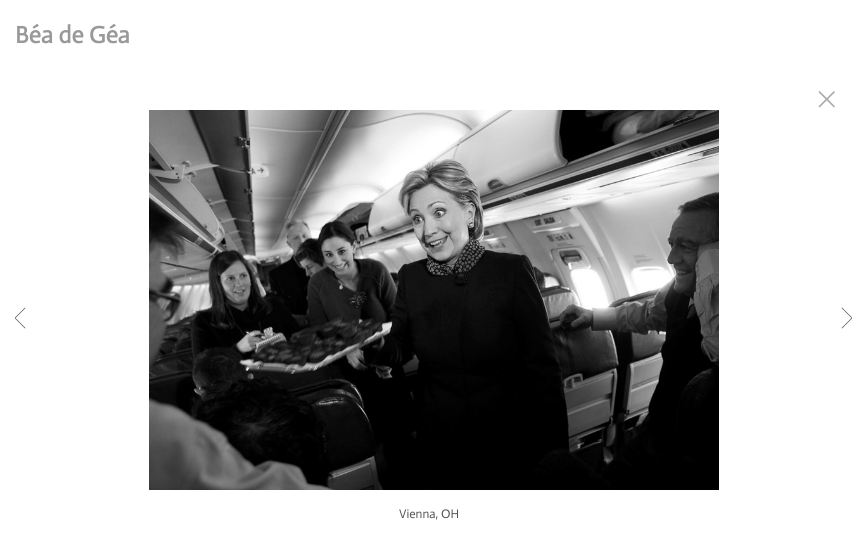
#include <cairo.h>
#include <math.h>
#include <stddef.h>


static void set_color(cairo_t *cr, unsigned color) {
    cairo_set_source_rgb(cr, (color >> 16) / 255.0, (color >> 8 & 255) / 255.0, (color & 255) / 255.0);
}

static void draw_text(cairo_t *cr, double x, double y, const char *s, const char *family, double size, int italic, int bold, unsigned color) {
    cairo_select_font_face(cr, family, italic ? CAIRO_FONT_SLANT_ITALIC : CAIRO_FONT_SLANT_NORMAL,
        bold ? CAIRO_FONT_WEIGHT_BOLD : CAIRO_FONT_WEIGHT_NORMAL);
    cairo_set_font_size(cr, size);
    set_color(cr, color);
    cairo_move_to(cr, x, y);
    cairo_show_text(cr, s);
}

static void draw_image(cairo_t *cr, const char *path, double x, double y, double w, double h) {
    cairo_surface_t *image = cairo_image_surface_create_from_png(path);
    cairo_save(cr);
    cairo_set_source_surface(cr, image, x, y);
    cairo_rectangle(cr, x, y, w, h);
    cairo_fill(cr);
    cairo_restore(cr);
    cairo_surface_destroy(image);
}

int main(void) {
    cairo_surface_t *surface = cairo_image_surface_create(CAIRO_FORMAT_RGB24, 867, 560);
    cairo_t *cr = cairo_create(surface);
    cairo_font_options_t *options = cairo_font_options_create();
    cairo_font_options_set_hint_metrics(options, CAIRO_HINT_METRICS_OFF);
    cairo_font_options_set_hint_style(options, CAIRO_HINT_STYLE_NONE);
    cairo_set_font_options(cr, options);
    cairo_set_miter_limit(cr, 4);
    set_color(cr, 0xFFFFFF);
    cairo_paint(cr);
    draw_text(cr, 15, 43, "Béa de Géa", "Actor", 24, 0, 1, 0x999999);
    draw_image(cr, "assets/img1.png", 818, 91, 17, 17);
    draw_image(cr, "assets/img2.png", 149, 110, 570, 380);
    set_color(cr, 0x555555);
    cairo_new_path(cr);
    cairo_move_to(cr, 15, 317.5);
    cairo_line_to(cr, 15, 318.5);
    cairo_line_to(cr, 25, 328.5);
    cairo_line_to(cr, 25.5, 328);
    cairo_line_to(cr, 15.5, 318);
    cairo_line_to(cr, 25.5, 308);
    cairo_line_to(cr, 25, 307.5);
    cairo_close_path(cr);
    cairo_fill(cr);
    cairo_new_path(cr);
    cairo_move_to(cr, 852, 317.5);
    cairo_line_to(cr, 852, 318.5);
    cairo_line_to(cr, 842, 328.5);
    cairo_line_to(cr, 841.5, 328);
    cairo_line_to(cr, 851.5, 318);
    cairo_line_to(cr, 841.5, 308);
    cairo_line_to(cr, 842, 307.5);
    cairo_close_path(cr);
    cairo_fill(cr);
    draw_text(cr, 399, 518, "Vienna, OH", "Actor", 12.5, 0, 0, 0x555555);
    cairo_surface_write_to_png(surface, "output.png");
    cairo_font_options_destroy(options);
    cairo_destroy(cr);
    cairo_surface_destroy(surface);
    return 0;
}
